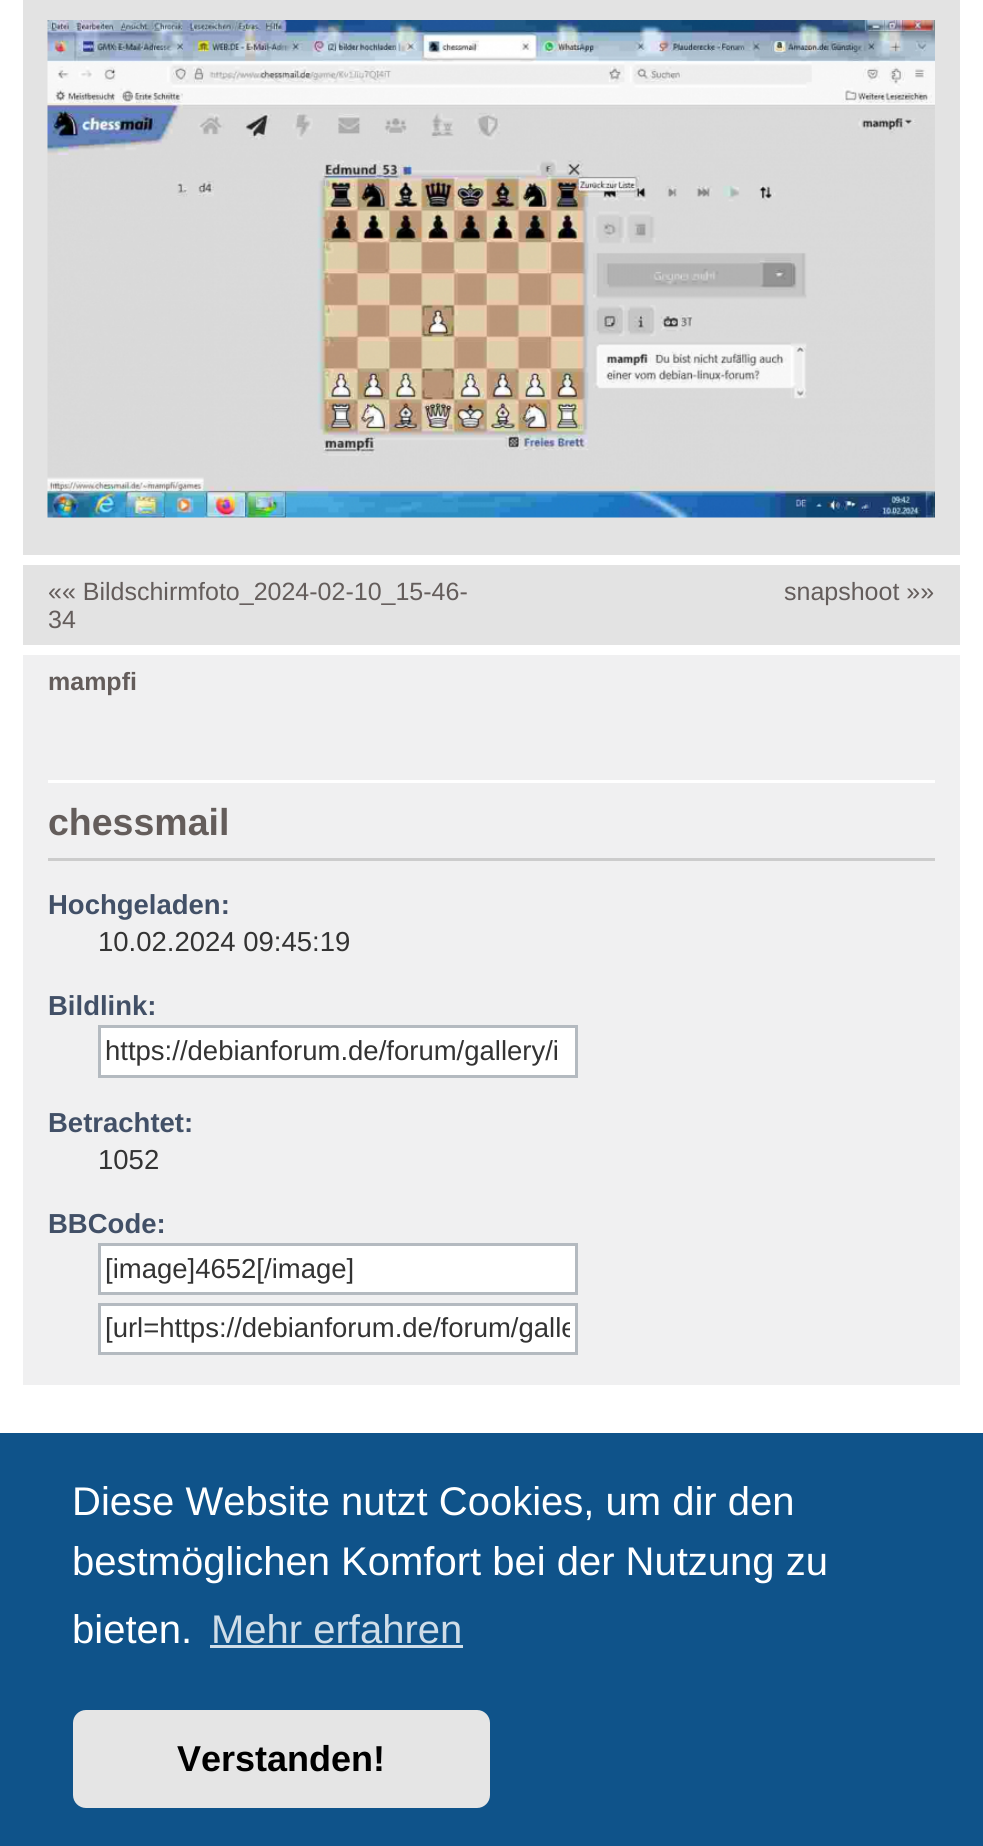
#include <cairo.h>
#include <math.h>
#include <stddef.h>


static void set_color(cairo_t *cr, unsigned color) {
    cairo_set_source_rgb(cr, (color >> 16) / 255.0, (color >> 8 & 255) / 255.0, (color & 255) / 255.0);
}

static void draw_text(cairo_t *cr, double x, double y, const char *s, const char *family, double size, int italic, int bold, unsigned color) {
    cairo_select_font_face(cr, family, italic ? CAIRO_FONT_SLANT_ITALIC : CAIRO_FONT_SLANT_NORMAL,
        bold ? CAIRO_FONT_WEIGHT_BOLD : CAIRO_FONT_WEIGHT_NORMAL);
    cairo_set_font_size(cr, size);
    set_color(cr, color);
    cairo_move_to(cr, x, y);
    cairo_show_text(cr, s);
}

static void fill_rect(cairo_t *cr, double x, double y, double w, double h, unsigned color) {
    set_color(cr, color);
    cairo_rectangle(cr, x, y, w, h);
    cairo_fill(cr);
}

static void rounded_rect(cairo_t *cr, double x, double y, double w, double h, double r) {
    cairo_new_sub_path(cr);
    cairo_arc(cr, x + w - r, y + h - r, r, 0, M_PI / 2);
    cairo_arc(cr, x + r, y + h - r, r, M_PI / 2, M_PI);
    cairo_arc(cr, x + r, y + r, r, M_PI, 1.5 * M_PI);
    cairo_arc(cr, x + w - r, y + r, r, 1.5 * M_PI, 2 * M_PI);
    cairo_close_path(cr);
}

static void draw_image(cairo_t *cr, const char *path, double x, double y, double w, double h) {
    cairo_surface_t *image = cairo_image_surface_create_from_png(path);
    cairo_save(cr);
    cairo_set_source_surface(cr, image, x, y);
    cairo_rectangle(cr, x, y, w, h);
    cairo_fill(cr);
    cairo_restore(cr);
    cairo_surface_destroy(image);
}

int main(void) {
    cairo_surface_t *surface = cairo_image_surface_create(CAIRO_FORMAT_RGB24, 983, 1846);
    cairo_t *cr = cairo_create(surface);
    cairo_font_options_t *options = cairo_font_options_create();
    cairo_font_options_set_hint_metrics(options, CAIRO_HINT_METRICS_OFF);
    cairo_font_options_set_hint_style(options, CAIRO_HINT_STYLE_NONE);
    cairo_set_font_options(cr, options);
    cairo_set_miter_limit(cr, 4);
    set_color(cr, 0xFFFFFF);
    cairo_paint(cr);
    fill_rect(cr, 23, 0, 937, 555, 0xE3E3E3);
    draw_image(cr, "assets/img1.png", 47, 20, 888, 498);
    fill_rect(cr, 23, 565, 937, 80, 0xE3E3E3);
    draw_text(cr, 48, 600, "«« Bildschirmfoto_2024-02-10_15-46-", "Liberation Sans", 25, 0, 0, 0x645D5B);
    draw_text(cr, 48, 628, "34", "Liberation Sans", 25, 0, 0, 0x645D5B);
    draw_text(cr, 784, 600, "snapshoot »»", "Liberation Sans", 25, 0, 0, 0x645D5B);
    fill_rect(cr, 23, 655, 937, 730, 0xF0F0F1);
    fill_rect(cr, 48, 780, 887, 3, 0xFFFFFF);
    draw_text(cr, 48, 690, "mampfi", "Liberation Sans", 25, 0, 1, 0x645D5B);
    draw_text(cr, 48, 835, "chessmail", "Liberation Sans", 37.5, 0, 1, 0x645D5B);
    fill_rect(cr, 48, 858, 887, 3, 0xCCCCCC);
    draw_text(cr, 48, 914, "Hochgeladen:", "Liberation Sans", 27.5, 0, 1, 0x425067);
    draw_text(cr, 98, 951, "10.02.2024 09:45:19", "Liberation Sans", 27.5, 0, 0, 0x333333);
    draw_text(cr, 48, 1015, "Bildlink:", "Liberation Sans", 27.5, 0, 1, 0x425067);
    set_color(cr, 0xFFFFFF);
    cairo_rectangle(cr, 99.5, 1026.5, 477, 50);
    cairo_fill_preserve(cr);
    set_color(cr, 0xB4BAC0);
    cairo_set_line_width(cr, 3);
    cairo_stroke(cr);
    draw_text(cr, 105, 1060, "https://debianforum.de/forum/gallery/i", "Liberation Sans", 27.5, 0, 0, 0x333333);
    draw_text(cr, 48, 1132, "Betrachtet:", "Liberation Sans", 27.5, 0, 1, 0x425067);
    draw_text(cr, 98, 1169, "1052", "Liberation Sans", 27.5, 0, 0, 0x333333);
    draw_text(cr, 48, 1233, "BBCode:", "Liberation Sans", 27.5, 0, 1, 0x425067);
    set_color(cr, 0xFFFFFF);
    cairo_rectangle(cr, 99.5, 1244.5, 477, 49);
    cairo_fill_preserve(cr);
    set_color(cr, 0xB4BAC0);
    cairo_stroke(cr);
    draw_text(cr, 105, 1278, "[image]4652[/image]", "Liberation Sans", 27.5, 0, 0, 0x333333);
    set_color(cr, 0xFFFFFF);
    cairo_rectangle(cr, 99.5, 1304.5, 477, 49);
    cairo_fill_preserve(cr);
    set_color(cr, 0xB4BAC0);
    cairo_stroke(cr);
    cairo_save(cr);
    cairo_rectangle(cr, 105, 1310, 465, 38);
    cairo_clip(cr);
    draw_text(cr, 105, 1337, "[url=https://debianforum.de/forum/galle", "Liberation Sans", 27.5, 0, 0, 0x333333);
    cairo_restore(cr);
    fill_rect(cr, 0, 1433, 983, 413, 0x0F538A);
    draw_text(cr, 72, 1515, "Diese Website nutzt Cookies, um dir den", "Liberation Sans", 40, 0, 0, 0xFFFFFF);
    draw_text(cr, 72, 1575, "bestmöglichen Komfort bei der Nutzung zu", "Liberation Sans", 40, 0, 0, 0xFFFFFF);
    draw_text(cr, 72, 1643, "bieten.", "Liberation Sans", 40, 0, 0, 0xFFFFFF);
    draw_text(cr, 211, 1643, "Mehr erfahren", "Liberation Sans", 40, 0, 0, 0xCFDDE8);
    fill_rect(cr, 210, 1645, 253, 3, 0xCFDDE8);
    set_color(cr, 0xE5E5E5);
    rounded_rect(cr, 73, 1710, 417, 98, 13);
    cairo_fill(cr);
    draw_text(cr, 177, 1771, "Verstanden!", "Liberation Sans", 36, 0, 1, 0x000000);
    cairo_surface_write_to_png(surface, "output.png");
    cairo_font_options_destroy(options);
    cairo_destroy(cr);
    cairo_surface_destroy(surface);
    return 0;
}
